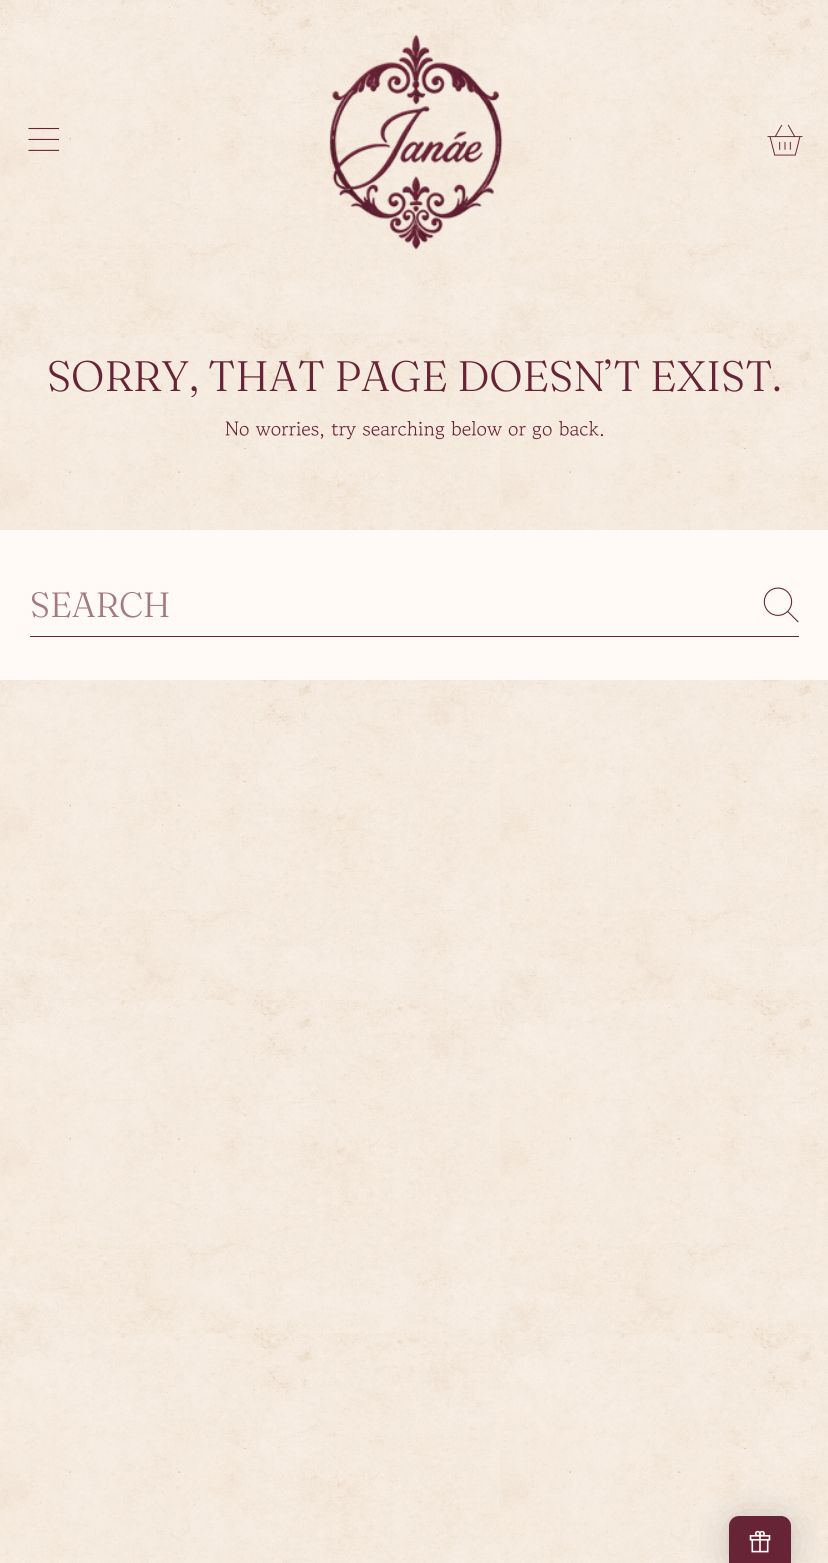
#include <cairo.h>
#include <math.h>
#include <stddef.h>


static void set_color(cairo_t *cr, unsigned color) {
    cairo_set_source_rgb(cr, (color >> 16) / 255.0, (color >> 8 & 255) / 255.0, (color & 255) / 255.0);
}

static void draw_text(cairo_t *cr, double x, double y, const char *s, const char *family, double size, int italic, int bold, unsigned color) {
    cairo_select_font_face(cr, family, italic ? CAIRO_FONT_SLANT_ITALIC : CAIRO_FONT_SLANT_NORMAL,
        bold ? CAIRO_FONT_WEIGHT_BOLD : CAIRO_FONT_WEIGHT_NORMAL);
    cairo_set_font_size(cr, size);
    set_color(cr, color);
    cairo_move_to(cr, x, y);
    cairo_show_text(cr, s);
}

static void fill_rect(cairo_t *cr, double x, double y, double w, double h, unsigned color) {
    set_color(cr, color);
    cairo_rectangle(cr, x, y, w, h);
    cairo_fill(cr);
}

static void rounded_rect(cairo_t *cr, double x, double y, double w, double h, double r) {
    cairo_new_sub_path(cr);
    cairo_arc(cr, x + w - r, y + h - r, r, 0, M_PI / 2);
    cairo_arc(cr, x + r, y + h - r, r, M_PI / 2, M_PI);
    cairo_arc(cr, x + r, y + r, r, M_PI, 1.5 * M_PI);
    cairo_arc(cr, x + w - r, y + r, r, 1.5 * M_PI, 2 * M_PI);
    cairo_close_path(cr);
}

static void draw_shadow(cairo_t *cr, double x, double y, double w, double h, double r, double blur, double alpha) {
    cairo_push_group_with_content(cr, CAIRO_CONTENT_ALPHA);
    cairo_set_operator(cr, CAIRO_OPERATOR_SOURCE);
    for (int i = 15; i >= -15 && fmin(w, h) + blur * i / 3 > 0; i -= 2) {
        double e = blur * i / 6;
        cairo_set_source_rgba(cr, 0, 0, 0, alpha * erfc((i - 1) / 8.5) / 2);
        rounded_rect(cr, x - e, y - e, w + 2 * e, h + 2 * e, fmax(0, fmin(r + e + blur * .6, fmin(w, h) / 2 + e)));
        cairo_fill(cr);
    }
    cairo_pattern_t *soft = cairo_pop_group(cr);
    cairo_mask(cr, soft);
    cairo_pattern_destroy(soft);
}

static void draw_image(cairo_t *cr, const char *path, double x, double y, double w, double h) {
    cairo_surface_t *image = cairo_image_surface_create_from_png(path);
    cairo_save(cr);
    cairo_set_source_surface(cr, image, x, y);
    cairo_rectangle(cr, x, y, w, h);
    cairo_fill(cr);
    cairo_restore(cr);
    cairo_surface_destroy(image);
}

int main(void) {
    cairo_surface_t *surface = cairo_image_surface_create(CAIRO_FORMAT_RGB24, 828, 1563);
    cairo_t *cr = cairo_create(surface);
    cairo_font_options_t *options = cairo_font_options_create();
    cairo_font_options_set_hint_metrics(options, CAIRO_HINT_METRICS_OFF);
    cairo_font_options_set_hint_style(options, CAIRO_HINT_STYLE_NONE);
    cairo_set_font_options(cr, options);
    cairo_set_miter_limit(cr, 4);
    set_color(cr, 0xFFFAF5);
    cairo_paint(cr);
    draw_image(cr, "assets/img1.png", 0, 0, 828, 1563);
    draw_image(cr, "assets/img2.png", 28, 127, 32, 24);
    draw_image(cr, "assets/img3.png", 329, 34, 174, 215);
    draw_image(cr, "assets/img4.png", 767, 124, 36, 32);
    draw_text(cr, 47, 391, "SORRY, THAT PAGE DOESN’T EXIST.", "Fraunces Light", 42.5, 0, 0, 0x672436);
    draw_text(cr, 225, 437, "No worries, try searching below or go back.", "Gowun Batang", 20, 0, 0, 0x672436);
    fill_rect(cr, 0, 530, 828, 150, 0xFFFAF5);
    fill_rect(cr, 30, 636, 769, 1, 0x672436);
    draw_text(cr, 30, 617, "SEARCH", "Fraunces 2 Light", 35, 0, 0, 0xA47A82);
    draw_image(cr, "assets/img5.png", 763, 587, 36, 36);
    set_color(cr, 0x000000);
    draw_shadow(cr, 729, 1519, 62, 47, 10, 20, 0.16);
    draw_shadow(cr, 729, 1518, 62, 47, 10, 4, 0.06);
    set_color(cr, 0x672436);
    cairo_new_path(cr);
    cairo_move_to(cr, 739, 1516);
    cairo_line_to(cr, 781, 1516);
    cairo_curve_to(cr, 786.5, 1516, 791, 1520.5, 791, 1526);
    cairo_line_to(cr, 791, 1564);
    cairo_line_to(cr, 729, 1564);
    cairo_line_to(cr, 729, 1526);
    cairo_curve_to(cr, 729, 1520.5, 733.5, 1516, 739, 1516);
    cairo_close_path(cr);
    cairo_fill(cr);
    draw_image(cr, "assets/img6.png", 749, 1530, 22, 23);
    cairo_surface_write_to_png(surface, "output.png");
    cairo_font_options_destroy(options);
    cairo_destroy(cr);
    cairo_surface_destroy(surface);
    return 0;
}
